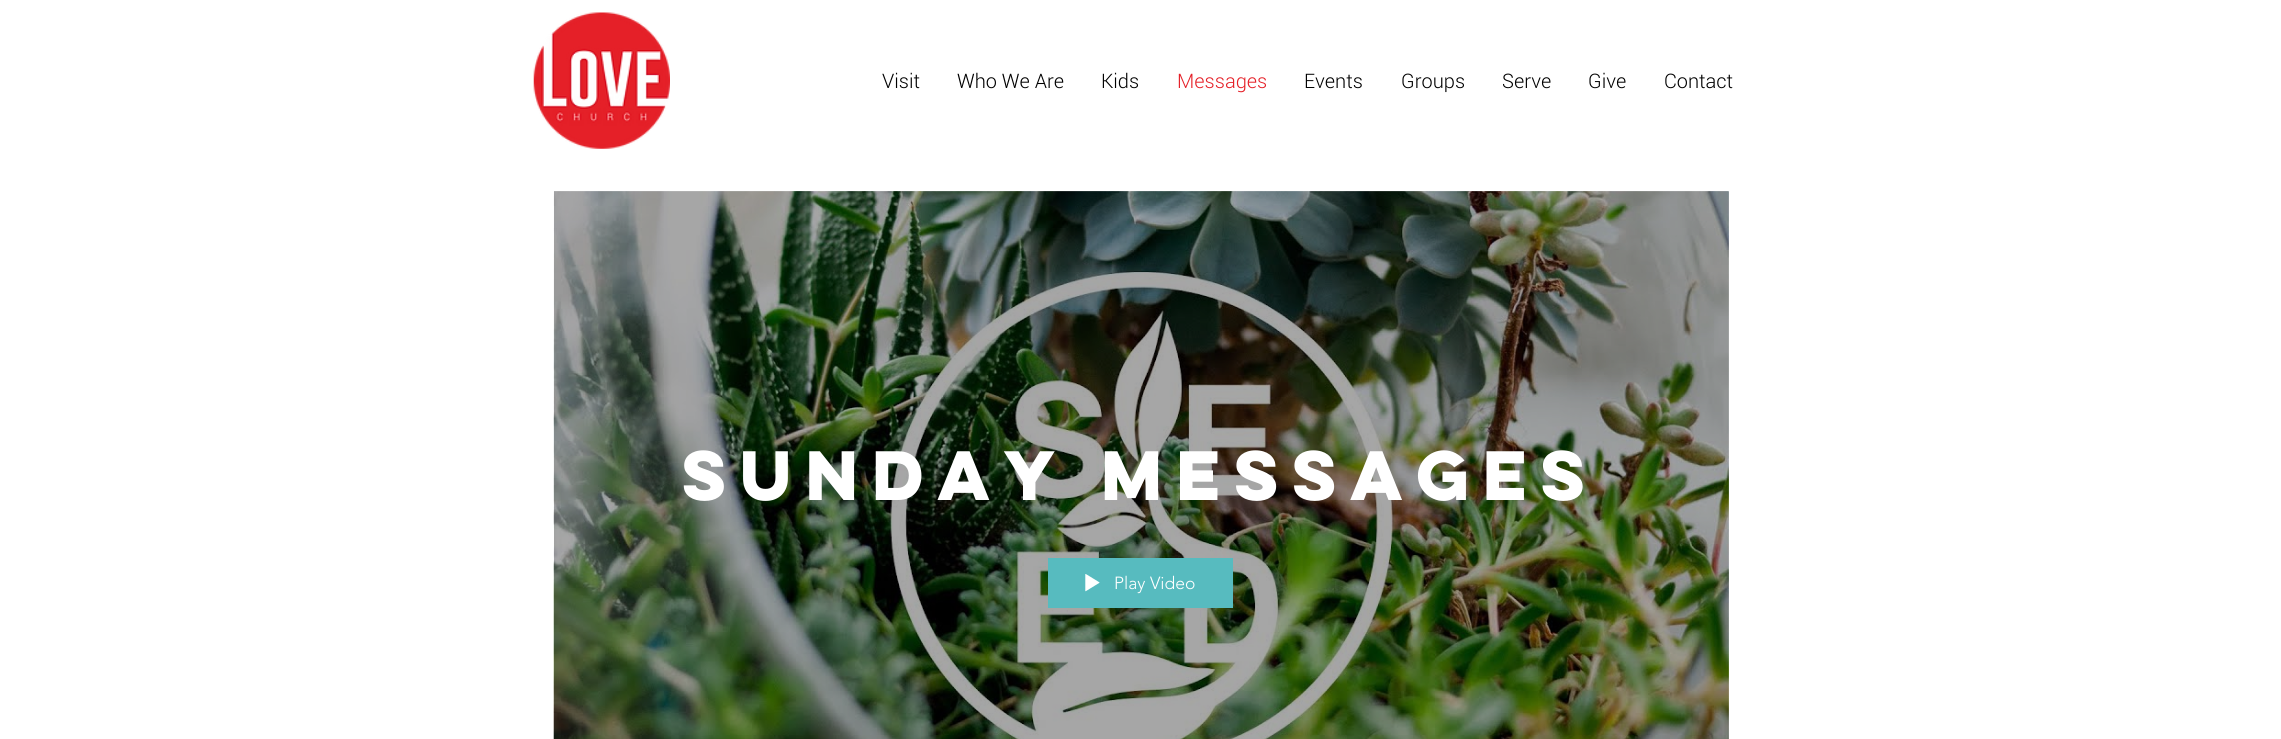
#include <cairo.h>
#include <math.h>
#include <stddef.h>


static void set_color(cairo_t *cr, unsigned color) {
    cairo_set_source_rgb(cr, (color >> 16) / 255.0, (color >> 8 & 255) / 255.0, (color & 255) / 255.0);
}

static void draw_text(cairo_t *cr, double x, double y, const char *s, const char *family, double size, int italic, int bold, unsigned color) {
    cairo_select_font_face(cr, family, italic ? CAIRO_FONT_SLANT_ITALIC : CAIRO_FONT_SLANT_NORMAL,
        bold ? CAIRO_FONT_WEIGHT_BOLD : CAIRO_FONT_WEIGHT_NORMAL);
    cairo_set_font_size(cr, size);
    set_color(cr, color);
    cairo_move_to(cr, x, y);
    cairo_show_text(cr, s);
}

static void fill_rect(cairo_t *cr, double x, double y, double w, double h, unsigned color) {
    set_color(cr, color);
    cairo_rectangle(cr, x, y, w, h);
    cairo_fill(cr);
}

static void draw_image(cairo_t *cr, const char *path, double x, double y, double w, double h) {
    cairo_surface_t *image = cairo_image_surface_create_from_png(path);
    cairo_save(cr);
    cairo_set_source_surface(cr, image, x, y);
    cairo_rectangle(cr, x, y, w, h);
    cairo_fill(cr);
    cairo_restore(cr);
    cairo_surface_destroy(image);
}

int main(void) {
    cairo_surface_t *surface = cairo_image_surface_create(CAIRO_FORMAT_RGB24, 2281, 739);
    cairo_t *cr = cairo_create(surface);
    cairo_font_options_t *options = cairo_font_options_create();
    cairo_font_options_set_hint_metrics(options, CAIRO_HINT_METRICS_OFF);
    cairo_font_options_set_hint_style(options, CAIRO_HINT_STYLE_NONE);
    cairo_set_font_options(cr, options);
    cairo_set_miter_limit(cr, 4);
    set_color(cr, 0xFFFFFF);
    cairo_paint(cr);
    draw_image(cr, "assets/img1.png", 533, 12, 137, 137);
    draw_text(cr, 882, 88, "Visit", "Roboto Light", 20, 0, 0, 0x000000);
    draw_text(cr, 957, 88, "Who We Are", "Roboto Light", 20, 0, 0, 0x000000);
    draw_text(cr, 1101, 88, "Kids", "Roboto Light", 20, 0, 0, 0x000000);
    draw_text(cr, 1177, 88, "Messages", "Roboto Light", 20, 0, 0, 0xE52028);
    draw_text(cr, 1304, 88, "Events", "Roboto Light", 20, 0, 0, 0x000000);
    draw_text(cr, 1401, 88, "Groups", "Roboto Light", 20, 0, 0, 0x000000);
    draw_text(cr, 1502, 88, "Serve", "Roboto Light", 20, 0, 0, 0x000000);
    draw_text(cr, 1588, 88, "Give", "Roboto Light", 20, 0, 0, 0x000000);
    draw_text(cr, 1664, 88, "Contact", "Roboto Light", 20, 0, 0, 0x000000);
    draw_image(cr, "assets/img2.png", 553, 191, 1176, 548);
    draw_image(cr, "assets/img3.png", 553, 191, 1176, 548);
    draw_text(cr, 682, 500, "Sunday Messages", "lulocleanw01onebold", 62.5, 0, 1, 0xFFFFFF);
    fill_rect(cr, 1048, 558, 185, 50, 0x57BBBF);
    draw_image(cr, "assets/img4.png", 1085, 574, 15, 18);
    draw_text(cr, 1114, 589, "Play Video", "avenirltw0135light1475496 Light", 17.5, 0, 0, 0xFFFFFF);
    cairo_surface_write_to_png(surface, "output.png");
    cairo_font_options_destroy(options);
    cairo_destroy(cr);
    cairo_surface_destroy(surface);
    return 0;
}
